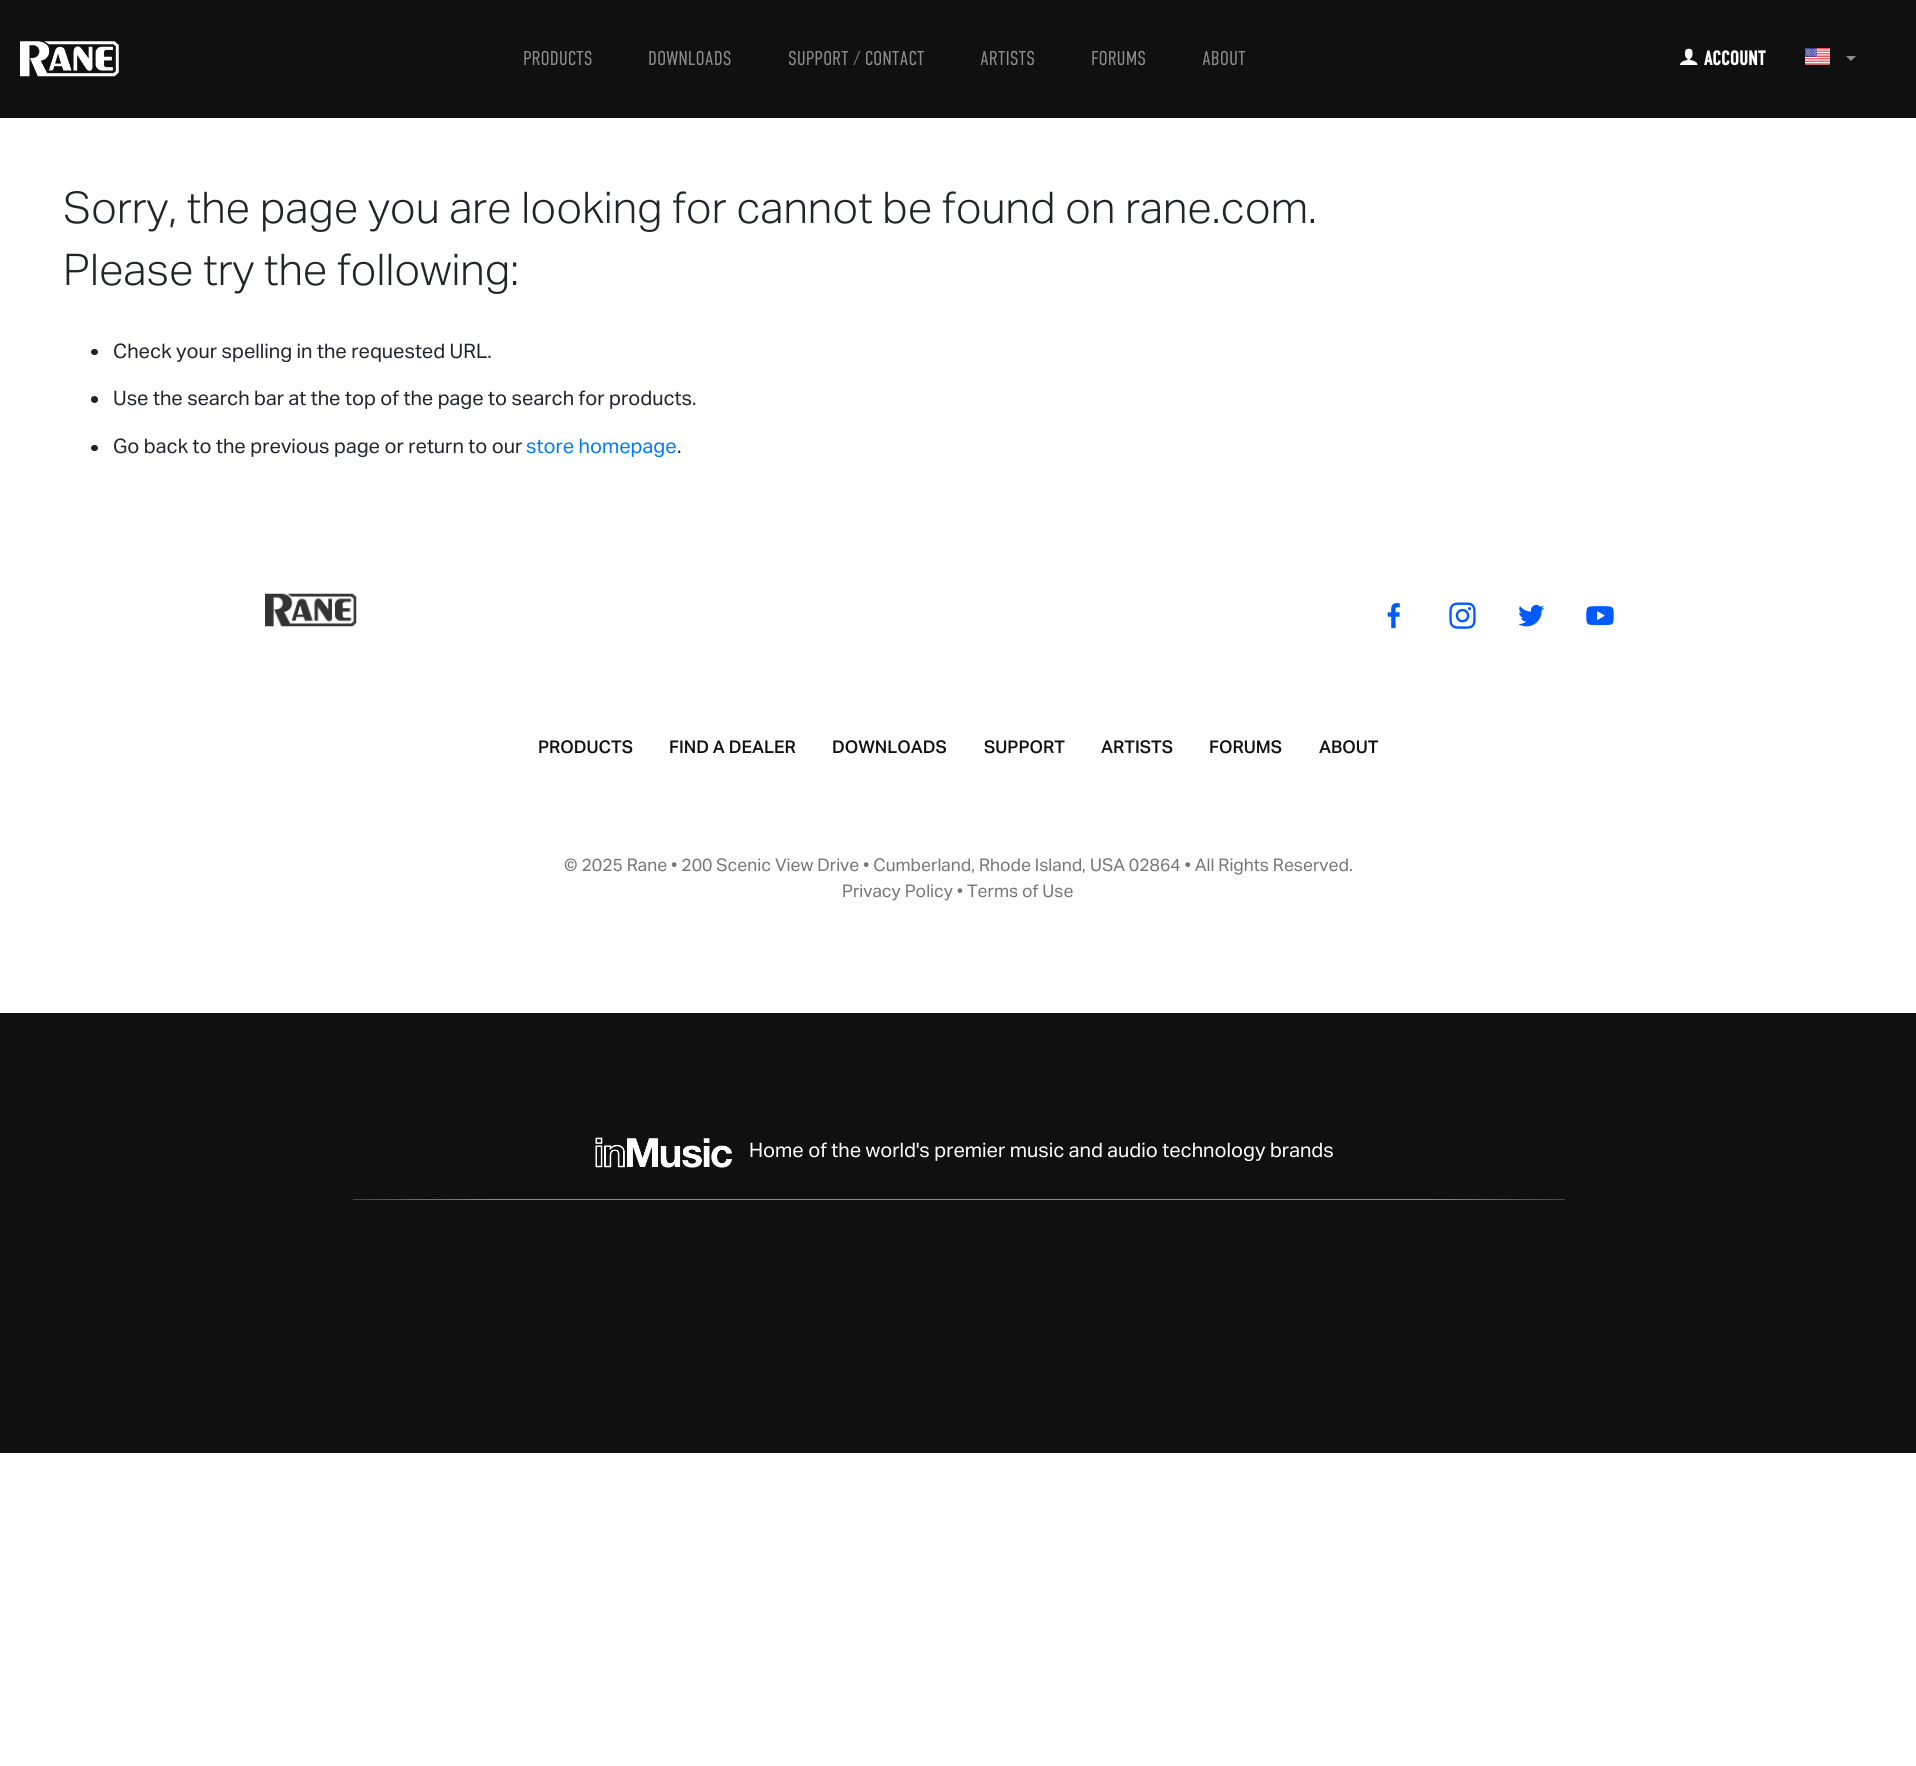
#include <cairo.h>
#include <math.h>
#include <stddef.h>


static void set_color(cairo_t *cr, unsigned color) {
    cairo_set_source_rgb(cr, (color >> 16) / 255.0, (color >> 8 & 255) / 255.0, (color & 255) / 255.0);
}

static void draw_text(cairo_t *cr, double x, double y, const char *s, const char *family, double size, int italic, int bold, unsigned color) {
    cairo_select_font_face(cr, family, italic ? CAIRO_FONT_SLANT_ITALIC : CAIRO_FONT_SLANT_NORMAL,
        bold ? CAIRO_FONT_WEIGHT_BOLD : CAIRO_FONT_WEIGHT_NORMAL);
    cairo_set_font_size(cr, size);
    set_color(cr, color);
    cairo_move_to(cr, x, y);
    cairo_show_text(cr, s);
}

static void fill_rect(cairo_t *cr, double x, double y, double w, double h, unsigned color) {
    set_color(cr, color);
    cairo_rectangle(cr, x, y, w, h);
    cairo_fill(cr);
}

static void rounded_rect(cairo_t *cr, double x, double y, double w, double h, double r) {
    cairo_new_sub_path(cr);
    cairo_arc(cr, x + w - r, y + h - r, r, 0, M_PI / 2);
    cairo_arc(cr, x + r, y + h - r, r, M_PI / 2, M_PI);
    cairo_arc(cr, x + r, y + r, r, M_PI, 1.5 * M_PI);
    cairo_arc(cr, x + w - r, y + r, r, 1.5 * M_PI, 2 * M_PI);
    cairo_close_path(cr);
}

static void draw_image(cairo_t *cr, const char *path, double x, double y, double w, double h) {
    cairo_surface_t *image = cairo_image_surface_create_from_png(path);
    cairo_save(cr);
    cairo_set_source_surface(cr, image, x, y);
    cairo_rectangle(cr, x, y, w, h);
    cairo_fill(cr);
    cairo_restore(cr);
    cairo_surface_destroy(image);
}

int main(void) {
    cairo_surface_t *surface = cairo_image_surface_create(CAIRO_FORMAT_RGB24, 1916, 1766);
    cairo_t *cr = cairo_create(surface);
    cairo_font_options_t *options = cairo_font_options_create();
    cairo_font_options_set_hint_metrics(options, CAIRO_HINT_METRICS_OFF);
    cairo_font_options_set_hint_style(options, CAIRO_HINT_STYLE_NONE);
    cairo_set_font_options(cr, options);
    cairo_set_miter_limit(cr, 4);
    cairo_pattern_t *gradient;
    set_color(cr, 0xFFFFFF);
    cairo_paint(cr);
    fill_rect(cr, 0, 0, 1916, 118, 0x101010);
    draw_image(cr, "assets/img1.png", 20, 41, 99, 36);
    draw_text(cr, 523, 65, "PRODUCTS", "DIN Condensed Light", 20, 0, 0, 0x8C8C8C);
    draw_text(cr, 648, 65, "DOWNLOADS", "DIN Condensed Light", 20, 0, 0, 0x8C8C8C);
    draw_text(cr, 788, 65, "SUPPORT / CONTACT", "DIN Condensed Light", 20, 0, 0, 0x8C8C8C);
    draw_text(cr, 980, 65, "ARTISTS", "DIN Condensed Light", 20, 0, 0, 0x8C8C8C);
    draw_text(cr, 1091, 65, "FORUMS", "DIN Condensed Light", 20, 0, 0, 0x8C8C8C);
    draw_text(cr, 1202, 65, "ABOUT", "DIN Condensed Light", 20, 0, 0, 0x8C8C8C);
    draw_image(cr, "assets/img2.png", 1680, 48, 18, 17);
    draw_text(cr, 1704, 65, "ACCOUNT", "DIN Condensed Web", 20, 0, 1, 0xFFFFFF);
    draw_image(cr, "assets/img3.png", 1805, 48, 25, 17);
    set_color(cr, 0x8C8C8C);
    cairo_new_path(cr);
    cairo_move_to(cr, 1846, 56);
    cairo_line_to(cr, 1856, 56);
    cairo_line_to(cr, 1851, 61);
    cairo_close_path(cr);
    cairo_fill(cr);
    draw_text(cr, 63, 223, "Sorry, the page you are looking for cannot be found on rane.com.", "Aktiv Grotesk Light", 43.75, 0, 0, 0x212529);
    draw_text(cr, 63, 285, "Please try the following:", "Aktiv Grotesk Light", 43.75, 0, 0, 0x212529);
    rounded_rect(cr, 91, 349, 7, 6, 3);
    cairo_fill(cr);
    draw_text(cr, 113, 358, "Check your spelling in the requested URL.", "Aktiv Grotesk", 20, 0, 0, 0x212529);
    cairo_new_path(cr);
    cairo_arc(cr, 94.5, 399.5, 3.5, 0, 2 * M_PI);
    cairo_fill(cr);
    draw_text(cr, 113, 405, "Use the search bar at the top of the page to search for products.", "Aktiv Grotesk", 20, 0, 0, 0x212529);
    rounded_rect(cr, 91, 445, 7, 6, 3);
    cairo_fill(cr);
    draw_text(cr, 113, 453, "Go back to the previous page or return to our", "Aktiv Grotesk", 20, 0, 0, 0x212529);
    draw_text(cr, 526, 453, "store homepage", "Aktiv Grotesk", 20, 0, 0, 0x007BFF);
    draw_text(cr, 677, 453, ".", "Aktiv Grotesk", 20, 0, 0, 0x212529);
    draw_image(cr, "assets/img4.png", 265, 593, 92, 34);
    draw_image(cr, "assets/img5.png", 1387, 603, 13, 26);
    draw_image(cr, "assets/img6.png", 1449, 602, 27, 27);
    draw_image(cr, "assets/img7.png", 1518, 604, 27, 23);
    draw_image(cr, "assets/img8.png", 1586, 606, 28, 20);
    draw_text(cr, 538, 753, "PRODUCTS", "Aktiv Grotesk Medium", 17.5, 0, 0, 0x101010);
    draw_text(cr, 669, 753, "FIND A DEALER", "Aktiv Grotesk Medium", 17.5, 0, 0, 0x101010);
    draw_text(cr, 832, 753, "DOWNLOADS", "Aktiv Grotesk Medium", 17.5, 0, 0, 0x101010);
    draw_text(cr, 984, 753, "SUPPORT", "Aktiv Grotesk Medium", 17.5, 0, 0, 0x101010);
    draw_text(cr, 1101, 753, "ARTISTS", "Aktiv Grotesk Medium", 17.5, 0, 0, 0x101010);
    draw_text(cr, 1209, 753, "FORUMS", "Aktiv Grotesk Medium", 17.5, 0, 0, 0x101010);
    draw_text(cr, 1319, 753, "ABOUT", "Aktiv Grotesk Medium", 17.5, 0, 0, 0x101010);
    draw_text(cr, 564, 871, "© 2025 Rane • 200 Scenic View Drive • Cumberland, Rhode Island, USA 02864 • All Rights Reserved.", "Aktiv Grotesk", 17.5, 0, 0, 0x767676);
    draw_text(cr, 842, 897, "Privacy Policy • Terms of Use", "Aktiv Grotesk", 17.5, 0, 0, 0x767676);
    fill_rect(cr, 0, 1013, 1916, 440, 0x101010);
    fill_rect(cr, 353, 1199, 1212, 1, 0x8C8C8C);
    draw_image(cr, "assets/img9.png", 595, 1137, 137, 31);
    draw_text(cr, 749, 1157, "Home of the world's premier music and audio technology brands", "Aktiv Grotesk", 20, 0, 0, 0xFFFFFF);
    gradient = cairo_pattern_create_linear(246, 1233, 496, 1233);
    cairo_pattern_add_color_stop_rgba(gradient, 0, 0.063, 0.063, 0.063, 1);
    cairo_pattern_add_color_stop_rgba(gradient, 1, 0.063, 0.063, 0.063, 0);
    cairo_set_source(cr, gradient);
    cairo_pattern_destroy(gradient);
    cairo_rectangle(cr, 353, 1199, 138, 1);
    cairo_fill(cr);
    gradient = cairo_pattern_create_linear(1671, 1233, 1421, 1233);
    cairo_pattern_add_color_stop_rgba(gradient, 0, 0.063, 0.063, 0.063, 1);
    cairo_pattern_add_color_stop_rgba(gradient, 1, 0.063, 0.063, 0.063, 0);
    cairo_set_source(cr, gradient);
    cairo_pattern_destroy(gradient);
    cairo_rectangle(cr, 1426, 1199, 139, 1);
    cairo_fill(cr);
    cairo_surface_write_to_png(surface, "output.png");
    cairo_font_options_destroy(options);
    cairo_destroy(cr);
    cairo_surface_destroy(surface);
    return 0;
}
